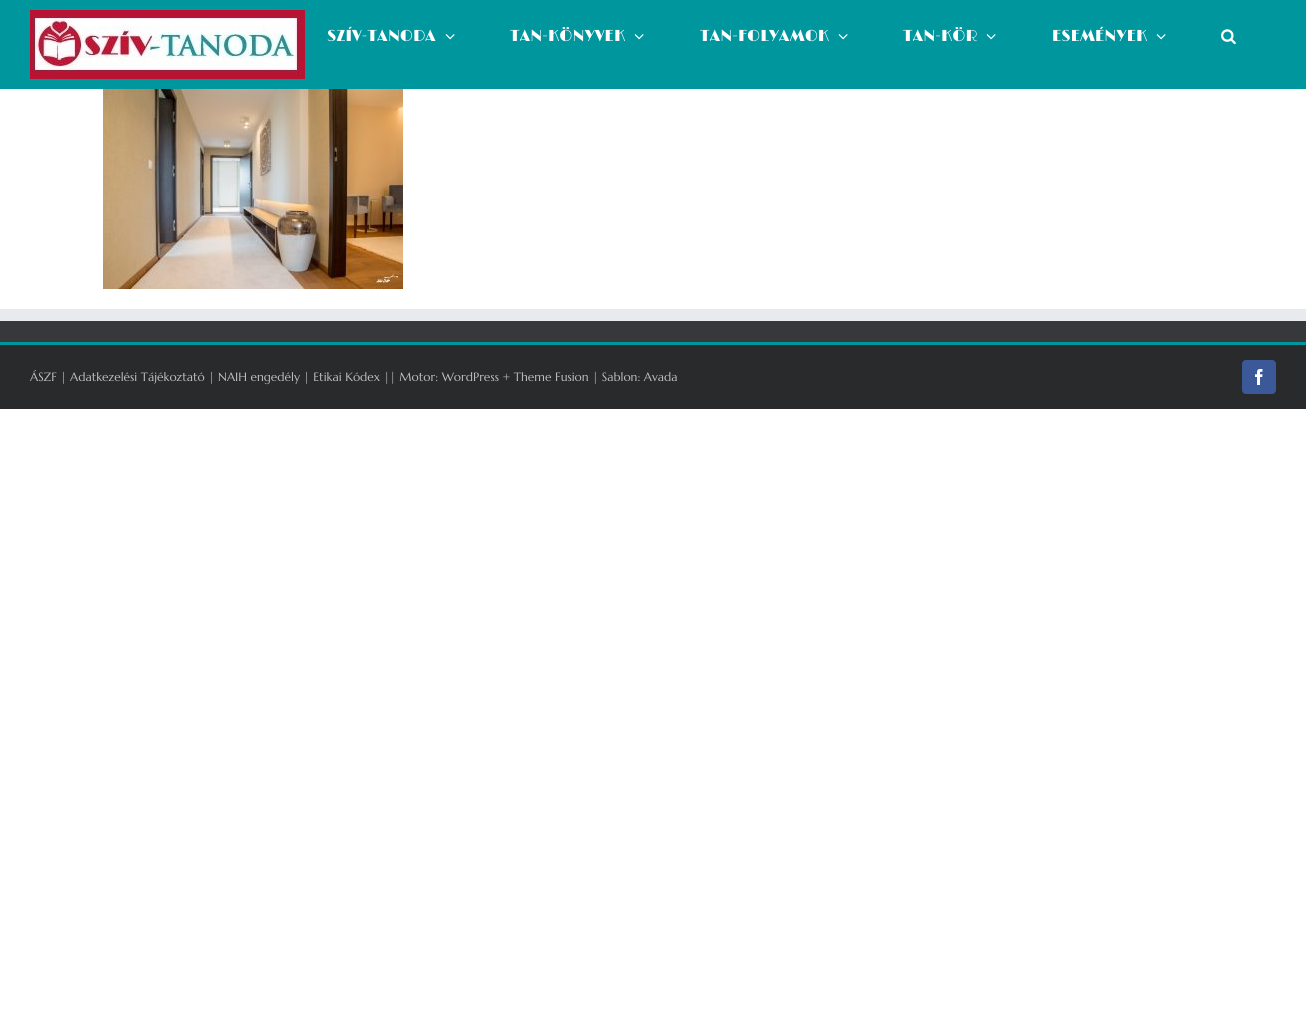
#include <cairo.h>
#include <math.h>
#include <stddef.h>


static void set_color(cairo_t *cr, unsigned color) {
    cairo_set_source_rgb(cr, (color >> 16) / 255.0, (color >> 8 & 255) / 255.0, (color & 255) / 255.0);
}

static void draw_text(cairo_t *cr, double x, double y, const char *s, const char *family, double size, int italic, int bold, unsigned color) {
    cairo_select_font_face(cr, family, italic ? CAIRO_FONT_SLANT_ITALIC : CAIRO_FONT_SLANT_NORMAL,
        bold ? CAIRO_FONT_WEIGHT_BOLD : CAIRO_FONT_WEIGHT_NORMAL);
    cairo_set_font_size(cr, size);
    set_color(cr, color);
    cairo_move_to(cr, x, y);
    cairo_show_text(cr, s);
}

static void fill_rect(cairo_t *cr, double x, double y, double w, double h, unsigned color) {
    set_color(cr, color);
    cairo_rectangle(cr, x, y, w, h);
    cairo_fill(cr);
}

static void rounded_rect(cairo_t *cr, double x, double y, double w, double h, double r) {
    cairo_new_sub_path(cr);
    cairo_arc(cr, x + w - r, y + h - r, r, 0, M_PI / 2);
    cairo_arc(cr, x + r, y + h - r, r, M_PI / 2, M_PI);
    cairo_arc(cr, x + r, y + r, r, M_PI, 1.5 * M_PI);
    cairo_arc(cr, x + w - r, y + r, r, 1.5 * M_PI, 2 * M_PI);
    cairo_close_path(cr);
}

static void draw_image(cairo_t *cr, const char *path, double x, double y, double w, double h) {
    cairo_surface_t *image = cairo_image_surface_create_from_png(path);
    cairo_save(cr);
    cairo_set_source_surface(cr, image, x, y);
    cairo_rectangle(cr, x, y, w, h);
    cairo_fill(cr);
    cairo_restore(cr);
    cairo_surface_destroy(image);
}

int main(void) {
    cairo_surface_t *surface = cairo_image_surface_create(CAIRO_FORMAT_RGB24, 1306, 1010);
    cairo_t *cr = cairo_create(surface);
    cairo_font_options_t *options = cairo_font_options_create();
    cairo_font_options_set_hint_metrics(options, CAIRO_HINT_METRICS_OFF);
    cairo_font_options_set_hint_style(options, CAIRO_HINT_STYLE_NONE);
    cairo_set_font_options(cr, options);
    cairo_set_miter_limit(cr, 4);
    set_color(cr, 0xFFFFFF);
    cairo_paint(cr);
    fill_rect(cr, 0, 0, 1306, 89, 0x00969E);
    draw_image(cr, "assets/img1.png", 30, 10, 275, 69);
    draw_text(cr, 327, 41, "SZÍV-TANODA", "Limelight Light", 16, 0, 0, 0xFFFFFF);
    draw_image(cr, "assets/img2.png", 445, 34, 10, 6);
    draw_text(cr, 510, 41, "TAN-KÖNYVEK", "Limelight Light", 16, 0, 0, 0xFFFFFF);
    draw_image(cr, "assets/img2.png", 634, 34, 10, 6);
    draw_text(cr, 700, 41, "TAN-FOLYAMOK", "Limelight Light", 16, 0, 0, 0xFFFFFF);
    draw_image(cr, "assets/img2.png", 838, 34, 10, 6);
    draw_text(cr, 903, 41, "TAN-KÖR", "Limelight Light", 16, 0, 0, 0xFFFFFF);
    draw_image(cr, "assets/img2.png", 986, 34, 10, 6);
    draw_text(cr, 1052, 41, "ESEMÉNYEK", "Limelight Light", 16, 0, 0, 0xFFFFFF);
    draw_image(cr, "assets/img2.png", 1156, 34, 10, 6);
    draw_image(cr, "assets/img3.png", 1221, 29, 15, 16);
    draw_image(cr, "assets/img4.png", 103, 89, 300, 200);
    fill_rect(cr, 0, 321, 1306, 21, 0x363839);
    fill_rect(cr, 0, 309, 1306, 12, 0xE9EAEE);
    fill_rect(cr, 0, 345, 1306, 64, 0x282A2B);
    fill_rect(cr, 0, 342, 1306, 3, 0x00969E);
    draw_text(cr, 30, 381, "ÁSZF | Adatkezelési Tájékoztató | NAIH engedély | Etikai Kódex || Motor: WordPress + Theme Fusion | Sablon: Avada", "Marcellus", 12, 0, 0, 0xBFBFBF);
    set_color(cr, 0x3B5998);
    rounded_rect(cr, 1242.5, 360.5, 33, 33, 3.5);
    cairo_fill_preserve(cr);
    cairo_set_line_width(cr, 1);
    cairo_stroke(cr);
    draw_image(cr, "assets/img5.png", 1255, 369, 8, 16);
    cairo_surface_write_to_png(surface, "output.png");
    cairo_font_options_destroy(options);
    cairo_destroy(cr);
    cairo_surface_destroy(surface);
    return 0;
}
